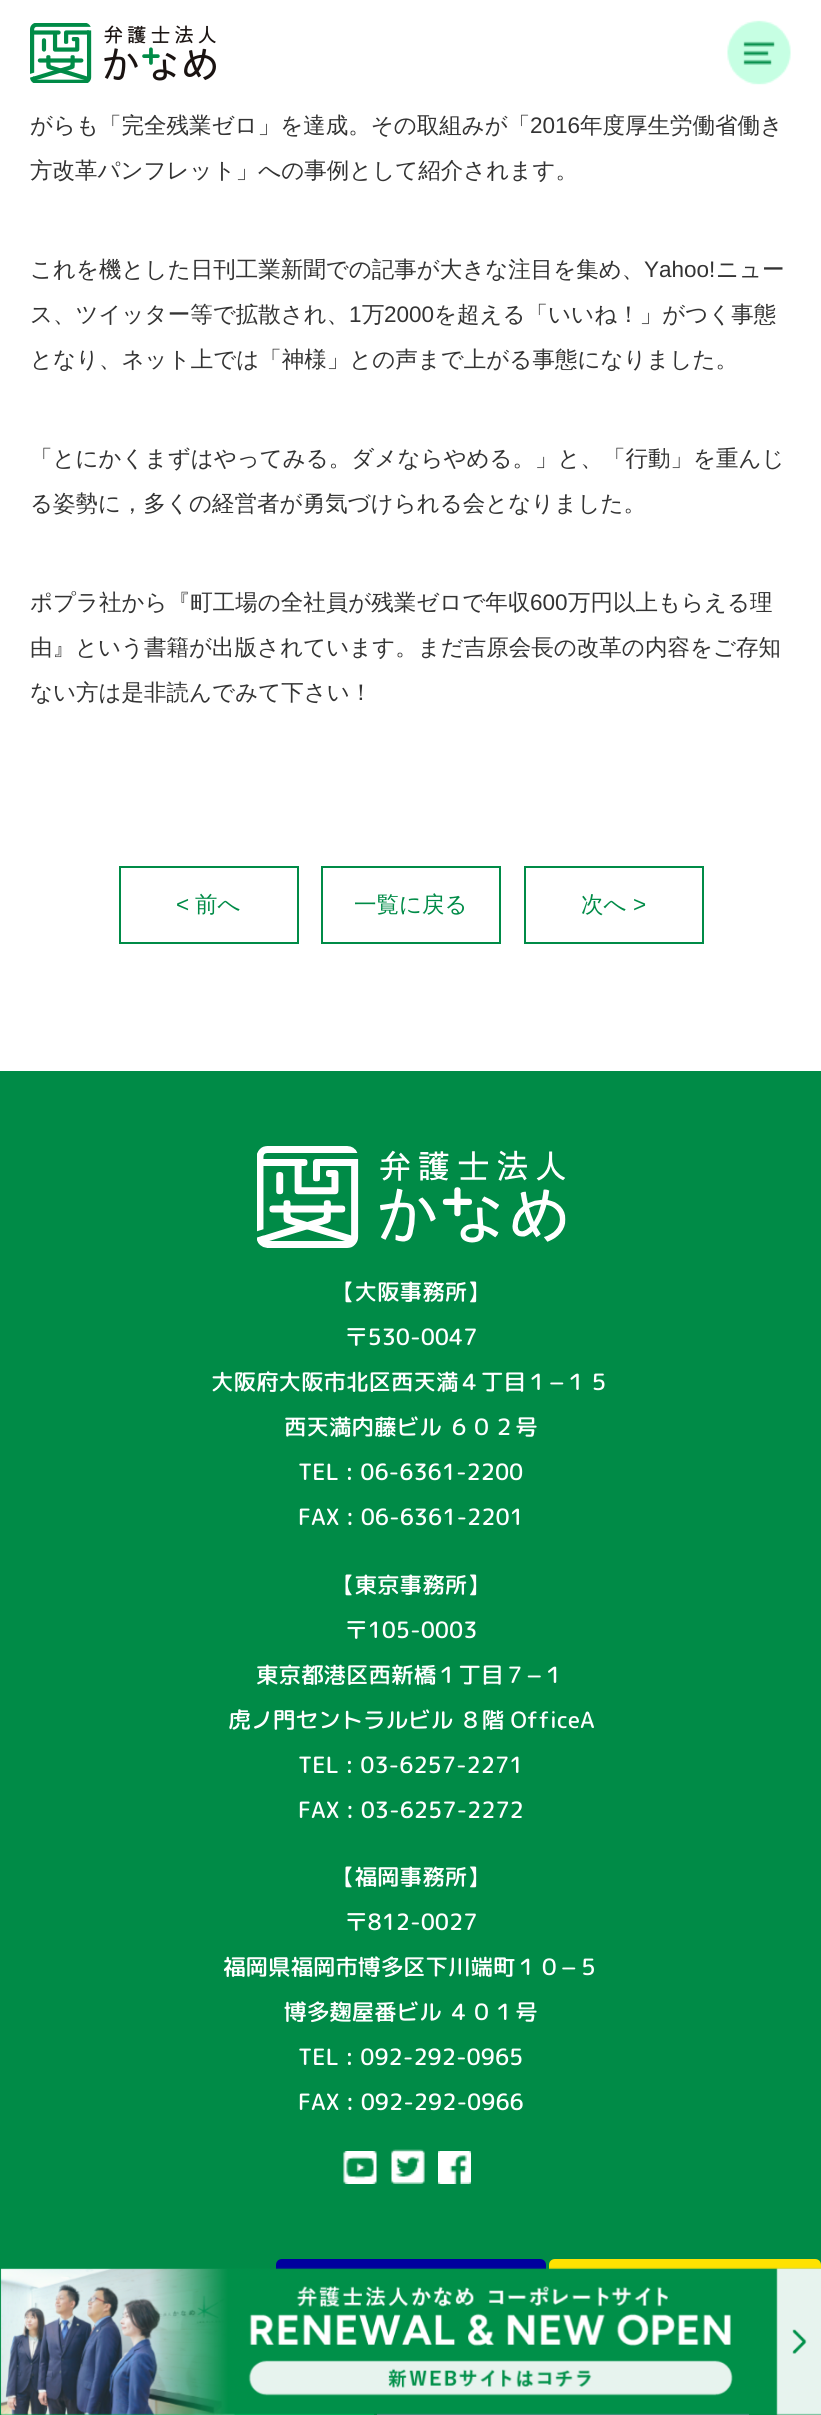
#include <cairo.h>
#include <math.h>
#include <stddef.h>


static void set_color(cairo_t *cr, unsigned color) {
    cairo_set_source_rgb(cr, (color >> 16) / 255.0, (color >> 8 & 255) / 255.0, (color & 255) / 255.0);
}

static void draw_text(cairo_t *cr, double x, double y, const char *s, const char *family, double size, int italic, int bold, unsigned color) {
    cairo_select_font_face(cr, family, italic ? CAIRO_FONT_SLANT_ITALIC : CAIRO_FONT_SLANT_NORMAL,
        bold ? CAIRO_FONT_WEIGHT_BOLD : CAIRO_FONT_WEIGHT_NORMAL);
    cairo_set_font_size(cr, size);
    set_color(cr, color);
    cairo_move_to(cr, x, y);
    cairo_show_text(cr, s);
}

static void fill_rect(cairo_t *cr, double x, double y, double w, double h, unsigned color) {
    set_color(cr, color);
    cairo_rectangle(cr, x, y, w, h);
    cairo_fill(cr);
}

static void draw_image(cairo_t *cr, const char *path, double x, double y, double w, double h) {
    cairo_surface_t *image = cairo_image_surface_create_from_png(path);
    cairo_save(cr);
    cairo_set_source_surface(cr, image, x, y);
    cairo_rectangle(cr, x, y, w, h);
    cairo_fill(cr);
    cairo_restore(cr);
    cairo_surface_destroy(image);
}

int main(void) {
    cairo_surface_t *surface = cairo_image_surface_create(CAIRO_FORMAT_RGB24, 821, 2415);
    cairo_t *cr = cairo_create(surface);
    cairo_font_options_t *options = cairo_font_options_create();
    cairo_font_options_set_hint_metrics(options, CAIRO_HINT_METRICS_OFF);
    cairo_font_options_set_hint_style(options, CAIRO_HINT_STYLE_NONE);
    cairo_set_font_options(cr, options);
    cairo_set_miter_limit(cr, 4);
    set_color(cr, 0xFFFFFF);
    cairo_paint(cr);
    draw_image(cr, "assets/img1.png", 30, 23, 186, 60);
    draw_image(cr, "assets/img2.png", 727, 20, 64, 65);
    draw_text(cr, 30, 133, "がらも「完全残業ゼロ」を達成。その取組みが「", "WenQuanYi Zen Hei Medium", 22.5, 0, 0, 0x333333);
    draw_text(cr, 530, 133, "2016", "Liberation Sans", 22.5, 0, 0, 0x333333);
    draw_text(cr, 580, 133, "年度厚生労働省働き", "WenQuanYi Zen Hei Medium", 22.5, 0, 0, 0x333333);
    draw_text(cr, 30, 178, "方改革パンフレット」への事例として紹介されます。", "WenQuanYi Zen Hei Medium", 22.5, 0, 0, 0x333333);
    draw_text(cr, 30, 277, "これを機とした日刊工業新聞での記事が大きな注目を集め、", "WenQuanYi Zen Hei Medium", 22.5, 0, 0, 0x333333);
    draw_text(cr, 644, 277, "Yahoo!", "Liberation Sans", 22.5, 0, 0, 0x333333);
    draw_text(cr, 716, 277, "ニュー", "WenQuanYi Zen Hei Medium", 22.5, 0, 0, 0x333333);
    draw_text(cr, 30, 322, "ス、ツイッター等で拡散され、", "WenQuanYi Zen Hei Medium", 22.5, 0, 0, 0x333333);
    draw_text(cr, 349, 322, "1", "Liberation Sans", 22.5, 0, 0, 0x333333);
    draw_text(cr, 362, 322, "万", "WenQuanYi Zen Hei Medium", 22.5, 0, 0, 0x333333);
    draw_text(cr, 384, 322, "2000", "Liberation Sans", 22.5, 0, 0, 0x333333);
    draw_text(cr, 434, 322, "を超える「いいね！」がつく事態", "WenQuanYi Zen Hei Medium", 22.5, 0, 0, 0x333333);
    draw_text(cr, 30, 367, "となり、ネット上では「神様」との声まで上がる事態になりました。", "WenQuanYi Zen Hei Medium", 22.5, 0, 0, 0x333333);
    draw_text(cr, 30, 466, "「とにかくまずはやってみる。ダメならやめる。」と、「行動」を重んじ", "WenQuanYi Zen Hei Medium", 22.5, 0, 0, 0x333333);
    draw_text(cr, 30, 511, "る姿勢に，多くの経営者が勇気づけられる会となりました。", "WenQuanYi Zen Hei Medium", 22.5, 0, 0, 0x333333);
    draw_text(cr, 30, 610, "ポプラ社から『町工場の全社員が残業ゼロで年収", "WenQuanYi Zen Hei Medium", 22.5, 0, 0, 0x333333);
    draw_text(cr, 530, 610, "600", "Liberation Sans", 22.5, 0, 0, 0x333333);
    draw_text(cr, 568, 610, "万円以上もらえる理", "WenQuanYi Zen Hei Medium", 22.5, 0, 0, 0x333333);
    draw_text(cr, 30, 655, "由』という書籍が出版されています。まだ吉原会長の改革の内容をご存知", "WenQuanYi Zen Hei Medium", 22.5, 0, 0, 0x333333);
    draw_text(cr, 30, 700, "ない方は是非読んでみて下さい！", "WenQuanYi Zen Hei Medium", 22.5, 0, 0, 0x333333);
    cairo_rectangle(cr, 120, 867, 178, 76);
    set_color(cr, 0x008B47);
    cairo_stroke(cr);
    draw_text(cr, 176, 912, "<", "Liberation Sans", 22.5, 0, 0, 0x008B47);
    draw_text(cr, 195, 912, "前へ", "WenQuanYi Zen Hei Medium", 22.5, 0, 0, 0x008B47);
    cairo_rectangle(cr, 322, 867, 178, 76);
    cairo_stroke(cr);
    draw_text(cr, 354, 912, "一覧に戻る", "WenQuanYi Zen Hei Medium", 22.5, 0, 0, 0x008B47);
    cairo_rectangle(cr, 525, 867, 178, 76);
    cairo_stroke(cr);
    draw_text(cr, 581, 912, "次へ", "WenQuanYi Zen Hei Medium", 22.5, 0, 0, 0x008B47);
    draw_text(cr, 633, 912, ">", "Liberation Sans", 22.5, 0, 0, 0x008B47);
    fill_rect(cr, 0, 1071, 821, 1344, 0x008B47);
    draw_image(cr, "assets/img3.png", 257, 1146, 309, 102);
    draw_text(cr, 332, 1300, "【大阪事務所】", "Rounded Mplus 1c Medium", 22.5, 0, 0, 0xFFFFFF);
    draw_text(cr, 345, 1345, "〒530-0047", "Rounded Mplus 1c Medium", 22.5, 0, 0, 0xFFFFFF);
    draw_text(cr, 211, 1390, "大阪府大阪市北区西天満４丁目１−１５", "Rounded Mplus 1c Medium", 22.5, 0, 0, 0xFFFFFF);
    draw_text(cr, 284, 1435, "西天満内藤ビル ６０２号", "Rounded Mplus 1c Medium", 22.5, 0, 0, 0xFFFFFF);
    draw_text(cr, 298, 1480, "TEL : 06-6361-2200", "Rounded Mplus 1c Medium", 22.5, 0, 0, 0xFFFFFF);
    draw_text(cr, 298, 1525, "FAX : 06-6361-2201", "Rounded Mplus 1c Medium", 22.5, 0, 0, 0xFFFFFF);
    draw_text(cr, 332, 1593, "【東京事務所】", "Rounded Mplus 1c Medium", 22.5, 0, 0, 0xFFFFFF);
    draw_text(cr, 345, 1638, "〒105-0003", "Rounded Mplus 1c Medium", 22.5, 0, 0, 0xFFFFFF);
    draw_text(cr, 256, 1683, "東京都港区西新橋１丁目７−１", "Rounded Mplus 1c Medium", 22.5, 0, 0, 0xFFFFFF);
    draw_text(cr, 228, 1728, "虎ノ門セントラルビル ８階 OfficeA", "Rounded Mplus 1c Medium", 22.5, 0, 0, 0xFFFFFF);
    draw_text(cr, 298, 1773, "TEL : 03-6257-2271", "Rounded Mplus 1c Medium", 22.5, 0, 0, 0xFFFFFF);
    draw_text(cr, 298, 1818, "FAX : 03-6257-2272", "Rounded Mplus 1c Medium", 22.5, 0, 0, 0xFFFFFF);
    draw_text(cr, 332, 1885, "【福岡事務所】", "Rounded Mplus 1c Medium", 22.5, 0, 0, 0xFFFFFF);
    draw_text(cr, 345, 1930, "〒812-0027", "Rounded Mplus 1c Medium", 22.5, 0, 0, 0xFFFFFF);
    draw_text(cr, 223, 1975, "福岡県福岡市博多区下川端町１０−５", "Rounded Mplus 1c Medium", 22.5, 0, 0, 0xFFFFFF);
    draw_text(cr, 284, 2020, "博多麹屋番ビル ４０１号", "Rounded Mplus 1c Medium", 22.5, 0, 0, 0xFFFFFF);
    draw_text(cr, 298, 2065, "TEL : 092-292-0965", "Rounded Mplus 1c Medium", 22.5, 0, 0, 0xFFFFFF);
    draw_text(cr, 298, 2110, "FAX : 092-292-0966", "Rounded Mplus 1c Medium", 22.5, 0, 0, 0xFFFFFF);
    draw_image(cr, "assets/img4.png", 343, 2151, 34, 33);
    draw_image(cr, "assets/img5.png", 391, 2149, 34, 35);
    draw_image(cr, "assets/img6.png", 438, 2151, 33, 33);
    set_color(cr, 0x00009E);
    cairo_new_path(cr);
    cairo_move_to(cr, 282, 2259);
    cairo_line_to(cr, 540, 2259);
    cairo_curve_to(cr, 543.5, 2259, 546, 2261.5, 546, 2265);
    cairo_line_to(cr, 546, 2337);
    cairo_line_to(cr, 276, 2337);
    cairo_line_to(cr, 276, 2265);
    cairo_curve_to(cr, 276, 2261.5, 278.5, 2259, 282, 2259);
    cairo_close_path(cr);
    cairo_fill(cr);
    set_color(cr, 0xFFE200);
    cairo_new_path(cr);
    cairo_move_to(cr, 555, 2259);
    cairo_line_to(cr, 815, 2259);
    cairo_curve_to(cr, 818.5, 2259, 821, 2261.5, 821, 2265);
    cairo_line_to(cr, 821, 2337);
    cairo_line_to(cr, 549, 2337);
    cairo_line_to(cr, 549, 2265);
    cairo_curve_to(cr, 549, 2261.5, 551.5, 2259, 555, 2259);
    cairo_close_path(cr);
    cairo_fill(cr);
    fill_rect(cr, 2, 2413, 372, 2, 0x01D16C);
    fill_rect(cr, 377, 2413, 372, 2, 0x9296BA);
    draw_image(cr, "assets/img7.png", 0, 2267, 821, 148);
    cairo_surface_write_to_png(surface, "output.png");
    cairo_font_options_destroy(options);
    cairo_destroy(cr);
    cairo_surface_destroy(surface);
    return 0;
}
